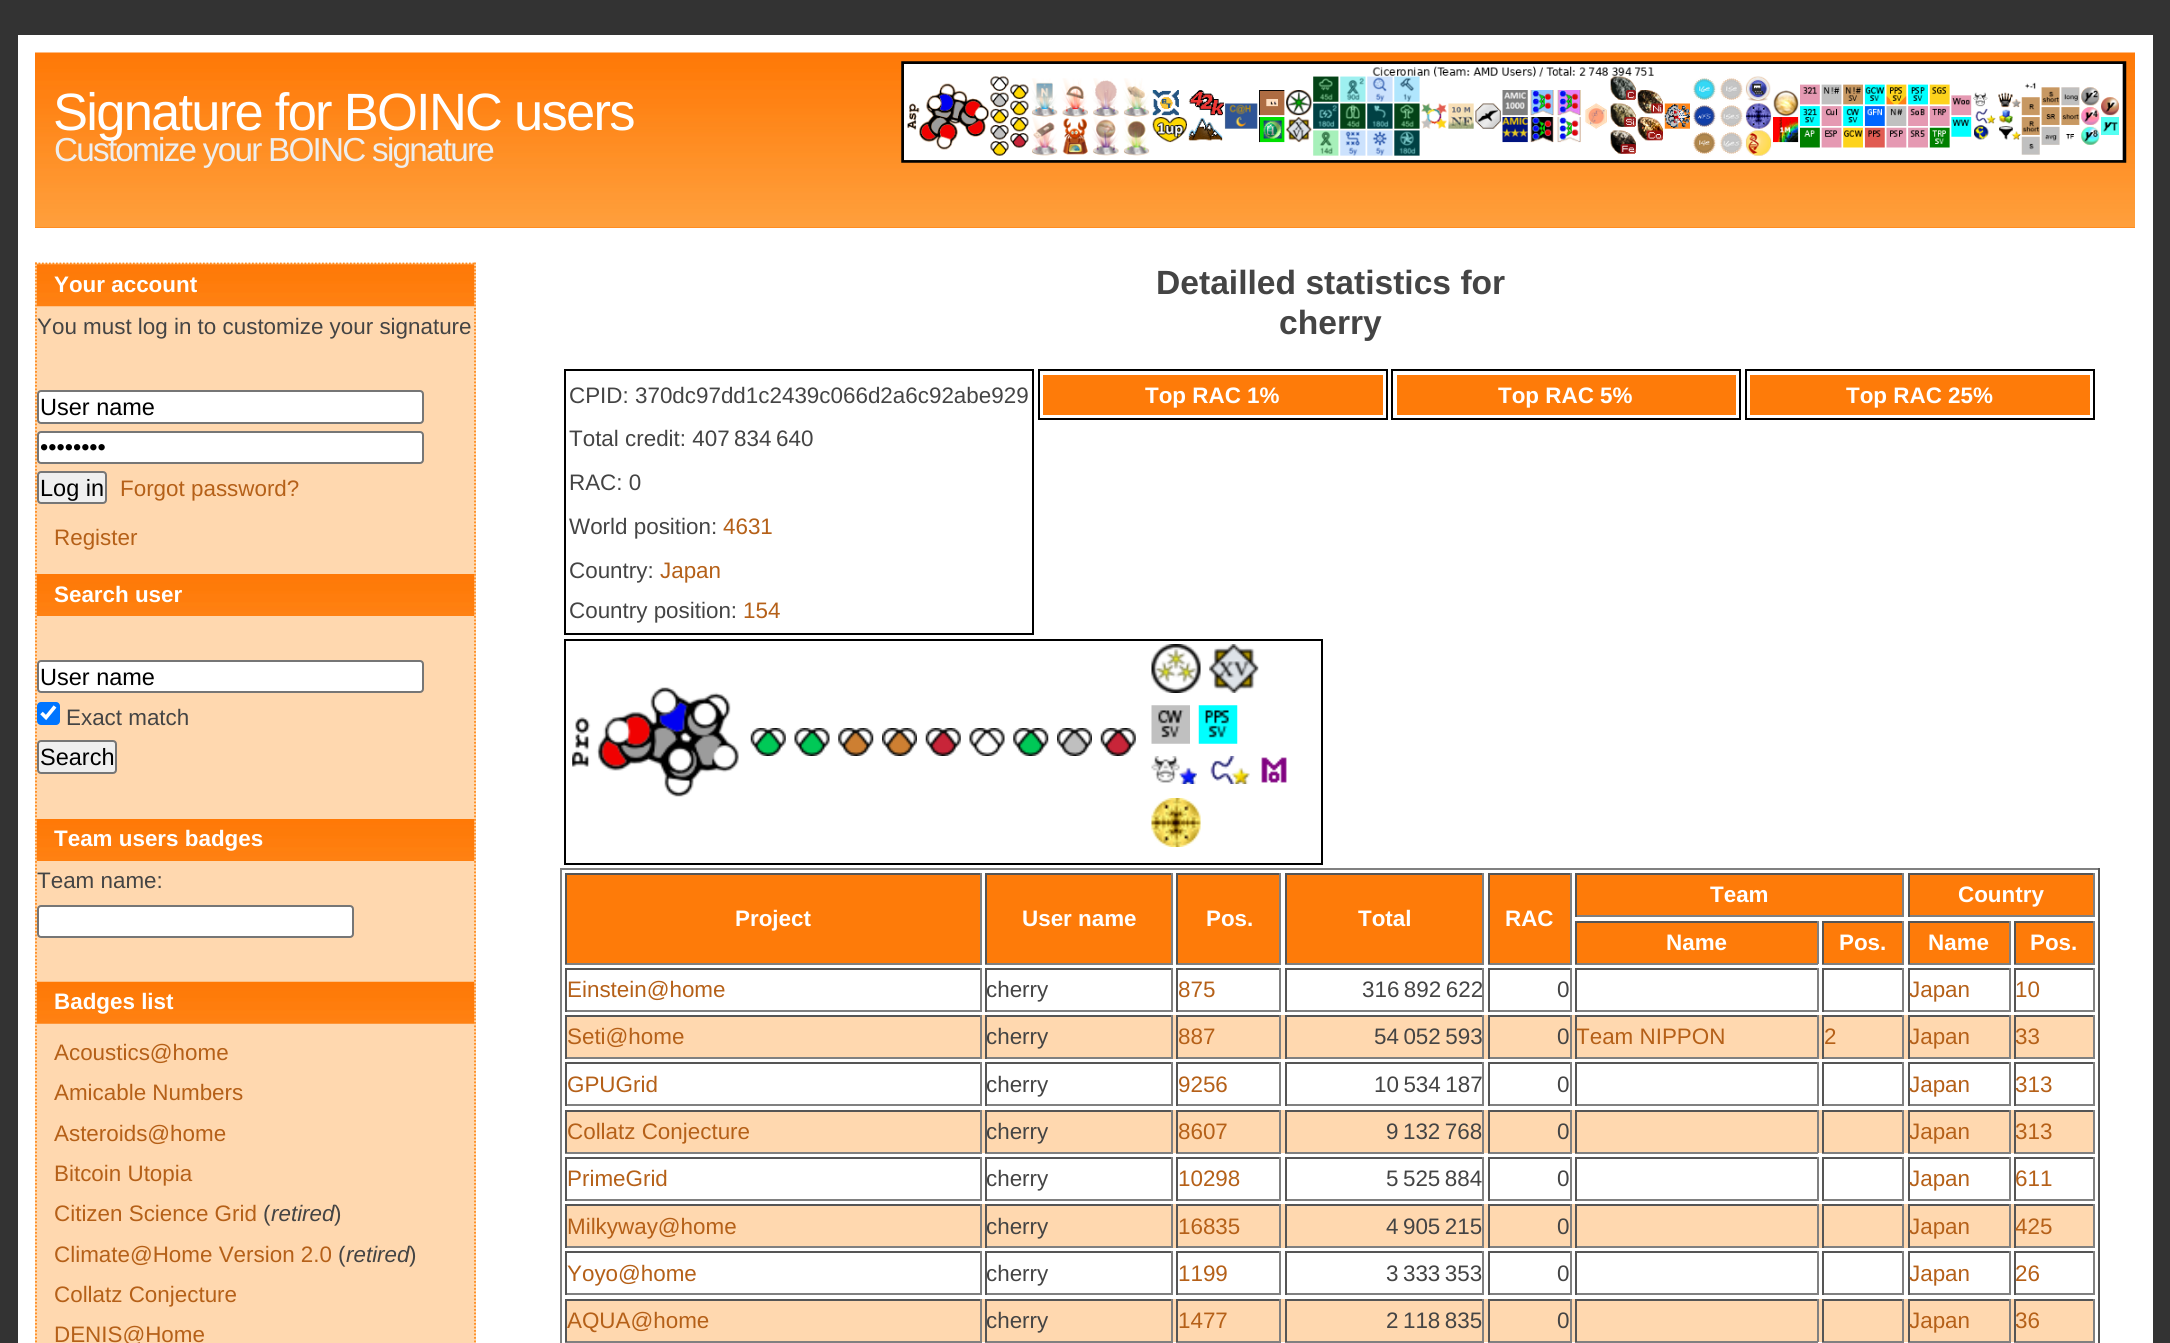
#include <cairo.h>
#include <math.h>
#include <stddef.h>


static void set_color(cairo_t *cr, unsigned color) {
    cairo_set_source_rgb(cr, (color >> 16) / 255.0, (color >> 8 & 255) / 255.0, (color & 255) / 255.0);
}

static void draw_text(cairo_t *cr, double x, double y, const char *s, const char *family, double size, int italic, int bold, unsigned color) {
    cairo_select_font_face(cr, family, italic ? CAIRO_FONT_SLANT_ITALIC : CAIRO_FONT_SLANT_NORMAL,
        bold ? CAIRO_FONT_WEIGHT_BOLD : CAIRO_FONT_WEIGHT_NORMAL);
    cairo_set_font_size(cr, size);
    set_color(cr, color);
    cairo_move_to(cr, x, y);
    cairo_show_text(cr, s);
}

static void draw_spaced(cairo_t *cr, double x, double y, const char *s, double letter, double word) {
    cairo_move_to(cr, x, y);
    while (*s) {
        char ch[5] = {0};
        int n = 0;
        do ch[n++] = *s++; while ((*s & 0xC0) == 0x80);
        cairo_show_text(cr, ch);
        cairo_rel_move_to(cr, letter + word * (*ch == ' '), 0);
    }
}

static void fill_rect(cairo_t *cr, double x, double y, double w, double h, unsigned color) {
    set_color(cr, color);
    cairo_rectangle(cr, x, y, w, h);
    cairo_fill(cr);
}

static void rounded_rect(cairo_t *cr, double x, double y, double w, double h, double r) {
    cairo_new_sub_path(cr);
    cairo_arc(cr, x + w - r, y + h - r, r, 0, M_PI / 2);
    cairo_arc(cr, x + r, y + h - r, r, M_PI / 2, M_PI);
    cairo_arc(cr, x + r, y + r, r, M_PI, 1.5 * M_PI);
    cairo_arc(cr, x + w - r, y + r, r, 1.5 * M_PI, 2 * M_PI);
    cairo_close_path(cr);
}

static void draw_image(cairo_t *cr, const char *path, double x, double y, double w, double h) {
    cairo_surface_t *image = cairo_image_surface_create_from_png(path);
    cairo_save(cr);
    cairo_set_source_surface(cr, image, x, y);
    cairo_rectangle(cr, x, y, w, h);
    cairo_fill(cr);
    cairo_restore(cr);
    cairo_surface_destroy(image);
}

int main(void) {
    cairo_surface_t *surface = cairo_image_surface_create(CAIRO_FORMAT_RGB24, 2170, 1343);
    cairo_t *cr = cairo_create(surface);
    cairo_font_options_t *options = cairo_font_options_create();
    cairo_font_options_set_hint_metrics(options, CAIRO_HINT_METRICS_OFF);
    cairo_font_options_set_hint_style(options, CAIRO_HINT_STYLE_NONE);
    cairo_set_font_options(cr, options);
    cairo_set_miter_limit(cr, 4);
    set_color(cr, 0x333333);
    cairo_paint(cr);
    fill_rect(cr, 18, 35, 2135, 1308, 0xFFFFFF);
    fill_rect(cr, 35, 227, 2100, 1, 0xFE7B09);
    draw_image(cr, "assets/img1.png", 35, 52, 2100, 176);
    cairo_select_font_face(cr, "Liberation Sans", CAIRO_FONT_SLANT_NORMAL, CAIRO_FONT_WEIGHT_NORMAL);
    cairo_set_font_size(cr, 52.5);
    set_color(cr, 0xFFFFFF);
    draw_spaced(cr, 53, 130, "Signature for BOINC users", -1.75, 0);
    draw_image(cr, "assets/img2.png", 901, 61, 1226, 102);
    cairo_set_font_size(cr, 33.25);
    set_color(cr, 0xEEEEEE);
    draw_spaced(cr, 54, 161, "Customize your BOINC signature", -1.75, 0);
    fill_rect(cr, 35, 263, 441, 1080, 0xFFD8AF);
    cairo_new_path(cr);
    cairo_move_to(cr, 35, 263.5);
    cairo_line_to(cr, 476, 263.5);
    set_color(cr, 0xFF8B1E);
    cairo_set_line_width(cr, 1.8);
    cairo_set_dash(cr, (double[]){1.75, 1.75}, 2, 0);
    cairo_stroke(cr);
    cairo_new_path(cr);
    cairo_move_to(cr, 475, 262.5);
    cairo_line_to(cr, 475, 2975);
    cairo_stroke(cr);
    cairo_new_path(cr);
    cairo_move_to(cr, 36, 262.5);
    cairo_line_to(cr, 36, 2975);
    cairo_stroke(cr);
    draw_image(cr, "assets/img3.png", 36, 264, 439, 43);
    draw_text(cr, 54, 292, "Your account", "Liberation Sans", 22.4, 0, 1, 0xFFFFFF);
    draw_text(cr, 37, 334, "You must log in to customize your signature", "Liberation Sans", 22.4, 0, 0, 0x444444);
    set_color(cr, 0xFFFFFF);
    rounded_rect(cr, 38, 391, 385, 32, 3);
    cairo_fill_preserve(cr);
    set_color(cr, 0x767676);
    cairo_set_line_width(cr, 2);
    cairo_set_dash(cr, NULL, 0, 0);
    cairo_stroke(cr);
    draw_text(cr, 40, 415, "User name", "Liberation Sans", 23.5, 0, 0, 0x000000);
    set_color(cr, 0xFFFFFF);
    rounded_rect(cr, 38, 432, 385, 31, 3);
    cairo_fill_preserve(cr);
    set_color(cr, 0x767676);
    cairo_stroke(cr);
    draw_text(cr, 40, 455, "••••••••", "Liberation Sans", 23.5, 0, 0, 0x000000);
    set_color(cr, 0xEFEFEF);
    rounded_rect(cr, 38, 472, 68, 31, 3);
    cairo_fill_preserve(cr);
    set_color(cr, 0x767676);
    cairo_stroke(cr);
    draw_text(cr, 40, 496, "Log in", "Liberation Sans", 23.5, 0, 0, 0x000000);
    draw_text(cr, 120, 496, "Forgot password?", "Liberation Sans", 22.4, 0, 0, 0xB56018);
    draw_text(cr, 54, 545, "Register", "Liberation Sans", 22.4, 0, 0, 0xB56018);
    draw_image(cr, "assets/img4.png", 36, 574, 439, 42);
    draw_text(cr, 54, 602, "Search user", "Liberation Sans", 22.4, 0, 1, 0xFFFFFF);
    rounded_rect(cr, 38, 661, 385, 31, 3);
    cairo_fill_preserve(cr);
    set_color(cr, 0x767676);
    cairo_stroke(cr);
    draw_text(cr, 40, 685, "User name", "Liberation Sans", 23.5, 0, 0, 0x000000);
    set_color(cr, 0x0075FF);
    rounded_rect(cr, 37, 702, 23, 23, 4);
    cairo_fill(cr);
    cairo_new_path(cr);
    cairo_move_to(cr, 41.5, 713);
    cairo_line_to(cr, 46, 717.5);
    cairo_line_to(cr, 55, 706.5);
    set_color(cr, 0xFFFFFF);
    cairo_set_line_width(cr, 3.6);
    cairo_stroke(cr);
    draw_text(cr, 66, 725, "Exact match", "Liberation Sans", 22.4, 0, 0, 0x444444);
    set_color(cr, 0xEFEFEF);
    rounded_rect(cr, 38, 741, 78, 32, 3);
    cairo_fill_preserve(cr);
    set_color(cr, 0x767676);
    cairo_set_line_width(cr, 2);
    cairo_stroke(cr);
    draw_text(cr, 40, 765, "Search", "Liberation Sans", 23.5, 0, 0, 0x000000);
    draw_image(cr, "assets/img4.png", 36, 819, 439, 42);
    draw_text(cr, 54, 846, "Team users badges", "Liberation Sans", 22.4, 0, 1, 0xFFFFFF);
    draw_text(cr, 37, 888, "Team name:", "Liberation Sans", 22.4, 0, 0, 0x444444);
    set_color(cr, 0xFFFFFF);
    rounded_rect(cr, 38, 906, 315, 31, 3);
    cairo_fill_preserve(cr);
    set_color(cr, 0x767676);
    cairo_stroke(cr);
    draw_image(cr, "assets/img5.png", 36, 981, 439, 43);
    draw_text(cr, 54, 1009, "Badges list", "Liberation Sans", 22.4, 0, 1, 0xFFFFFF);
    draw_text(cr, 54, 1060, "Acoustics@home", "Liberation Sans", 22.4, 0, 0, 0xB56018);
    draw_text(cr, 54, 1100, "Amicable Numbers", "Liberation Sans", 22.4, 0, 0, 0xB56018);
    draw_text(cr, 54, 1141, "Asteroids@home", "Liberation Sans", 22.4, 0, 0, 0xB56018);
    draw_text(cr, 54, 1181, "Bitcoin Utopia", "Liberation Sans", 22.4, 0, 0, 0xB56018);
    draw_text(cr, 54, 1221, "Citizen Science Grid", "Liberation Sans", 22.4, 0, 0, 0xB56018);
    draw_text(cr, 263, 1221, "(", "Liberation Sans", 22.4, 0, 0, 0x444444);
    draw_text(cr, 271, 1221, "retired", "Liberation Sans", 22.4, 1, 0, 0x444444);
    draw_text(cr, 334, 1221, ")", "Liberation Sans", 22.4, 0, 0, 0x444444);
    draw_text(cr, 54, 1262, "Climate@Home Version 2.0", "Liberation Sans", 22.4, 0, 0, 0xB56018);
    draw_text(cr, 338, 1262, "(", "Liberation Sans", 22.4, 0, 0, 0x444444);
    draw_text(cr, 346, 1262, "retired", "Liberation Sans", 22.4, 1, 0, 0x444444);
    draw_text(cr, 409, 1262, ")", "Liberation Sans", 22.4, 0, 0, 0x444444);
    draw_text(cr, 54, 1302, "Collatz Conjecture", "Liberation Sans", 22.4, 0, 0, 0xB56018);
    draw_text(cr, 54, 1342, "DENIS@Home", "Liberation Sans", 22.4, 0, 0, 0xB56018);
    draw_text(cr, 1156, 294, "Detailled statistics for", "Liberation Sans", 33.6, 0, 1, 0x444444);
    draw_text(cr, 1279, 334, "cherry", "Liberation Sans", 33.6, 0, 1, 0x444444);
    cairo_rectangle(cr, 565, 370, 468, 264);
    set_color(cr, 0x000000);
    cairo_stroke(cr);
    draw_text(cr, 569, 403, "CPID: 370dc97dd1c2439c066d2a6c92abe929", "Liberation Sans", 22.4, 0, 0, 0x444444);
    draw_text(cr, 569, 446, "Total credit: 407 834 640", "Liberation Sans", 22.4, 0, 0, 0x444444);
    draw_text(cr, 569, 490, "RAC: 0", "Liberation Sans", 22.4, 0, 0, 0x444444);
    draw_text(cr, 569, 534, "World position:", "Liberation Sans", 22.4, 0, 0, 0x444444);
    draw_text(cr, 723, 534, "4631", "Liberation Sans", 22.4, 0, 0, 0xB56018);
    draw_text(cr, 569, 578, "Country:", "Liberation Sans", 22.4, 0, 0, 0x444444);
    draw_text(cr, 660, 578, "Japan", "Liberation Sans", 22.4, 0, 0, 0xB56018);
    draw_text(cr, 569, 618, "Country position:", "Liberation Sans", 22.4, 0, 0, 0x444444);
    draw_text(cr, 743, 618, "154", "Liberation Sans", 22.4, 0, 0, 0xB56018);
    cairo_rectangle(cr, 1039, 370, 348, 49);
    set_color(cr, 0x000000);
    cairo_stroke(cr);
    fill_rect(cr, 1043, 375, 340, 40, 0xFE7B09);
    draw_text(cr, 1145, 403, "Top RAC 1%", "Liberation Sans", 22.4, 0, 1, 0xFFFFFF);
    cairo_rectangle(cr, 1392, 370, 348, 49);
    set_color(cr, 0x000000);
    cairo_stroke(cr);
    fill_rect(cr, 1397, 375, 339, 40, 0xFE7B09);
    draw_text(cr, 1498, 403, "Top RAC 5%", "Liberation Sans", 22.4, 0, 1, 0xFFFFFF);
    cairo_rectangle(cr, 1746, 370, 348, 49);
    set_color(cr, 0x000000);
    cairo_stroke(cr);
    fill_rect(cr, 1750, 375, 340, 40, 0xFE7B09);
    draw_text(cr, 1846, 403, "Top RAC 25%", "Liberation Sans", 22.4, 0, 1, 0xFFFFFF);
    cairo_rectangle(cr, 565, 640, 757, 224);
    set_color(cr, 0x000000);
    cairo_stroke(cr);
    draw_image(cr, "assets/img6.png", 572, 687, 167, 110);
    draw_image(cr, "assets/img7.png", 750, 728, 36, 28);
    draw_image(cr, "assets/img8.png", 794, 728, 36, 28);
    draw_image(cr, "assets/img9.png", 838, 728, 36, 28);
    draw_image(cr, "assets/img10.png", 882, 728, 35, 28);
    draw_image(cr, "assets/img11.png", 925, 728, 36, 28);
    draw_image(cr, "assets/img12.png", 969, 728, 36, 28);
    draw_image(cr, "assets/img13.png", 1013, 728, 36, 28);
    draw_image(cr, "assets/img14.png", 1057, 728, 35, 28);
    draw_image(cr, "assets/img15.png", 1100, 728, 36, 28);
    draw_image(cr, "assets/img16.png", 1151, 644, 50, 49);
    draw_image(cr, "assets/img17.png", 1209, 644, 50, 49);
    draw_image(cr, "assets/img18.png", 1151, 705, 39, 39);
    draw_image(cr, "assets/img19.png", 1198, 705, 40, 39);
    draw_image(cr, "assets/img20.png", 1151, 756, 46, 28);
    draw_image(cr, "assets/img21.png", 1210, 756, 40, 28);
    draw_image(cr, "assets/img22.png", 1261, 757, 26, 26);
    draw_image(cr, "assets/img23.png", 1151, 798, 50, 49);
    fill_rect(cr, 560, 868, 1540, 2, 0x808080);
    fill_rect(cr, 2098, 868, 2, 475, 0x555555);
    fill_rect(cr, 560, 868, 2, 475, 0x808080);
    fill_rect(cr, 1577, 875, 325, 40, 0xFE7B09);
    fill_rect(cr, 1575, 873, 329, 2, 0x555555);
    fill_rect(cr, 1902, 873, 2, 44, 0x808080);
    fill_rect(cr, 1575, 915, 329, 2, 0x808080);
    fill_rect(cr, 1575, 873, 2, 44, 0x555555);
    draw_text(cr, 1710, 902, "Team", "Liberation Sans", 22.4, 0, 1, 0xFFFFFF);
    fill_rect(cr, 1910, 875, 183, 40, 0xFE7B09);
    fill_rect(cr, 1908, 873, 187, 2, 0x555555);
    fill_rect(cr, 2093, 873, 2, 44, 0x808080);
    fill_rect(cr, 1908, 915, 187, 2, 0x808080);
    fill_rect(cr, 1908, 873, 2, 44, 0x555555);
    draw_text(cr, 1958, 902, "Country", "Liberation Sans", 22.4, 0, 1, 0xFFFFFF);
    fill_rect(cr, 567, 875, 413, 88, 0xFE7B09);
    fill_rect(cr, 565, 873, 417, 2, 0x555555);
    fill_rect(cr, 980, 873, 2, 91, 0x808080);
    fill_rect(cr, 565, 963, 417, 2, 0x808080);
    fill_rect(cr, 565, 873, 2, 91, 0x555555);
    draw_text(cr, 735, 926, "Project", "Liberation Sans", 22.4, 0, 1, 0xFFFFFF);
    fill_rect(cr, 987, 875, 184, 88, 0xFE7B09);
    fill_rect(cr, 985, 873, 188, 2, 0x555555);
    fill_rect(cr, 1171, 873, 2, 91, 0x808080);
    fill_rect(cr, 985, 963, 188, 2, 0x808080);
    fill_rect(cr, 985, 873, 2, 91, 0x555555);
    draw_text(cr, 1022, 926, "User name", "Liberation Sans", 22.4, 0, 1, 0xFFFFFF);
    fill_rect(cr, 1178, 875, 101, 88, 0xFE7B09);
    fill_rect(cr, 1176, 873, 105, 2, 0x555555);
    fill_rect(cr, 1279, 873, 2, 91, 0x808080);
    fill_rect(cr, 1176, 963, 105, 2, 0x808080);
    fill_rect(cr, 1176, 873, 2, 91, 0x555555);
    draw_text(cr, 1206, 926, "Pos.", "Liberation Sans", 22.4, 0, 1, 0xFFFFFF);
    fill_rect(cr, 1287, 875, 195, 88, 0xFE7B09);
    fill_rect(cr, 1285, 873, 199, 2, 0x555555);
    fill_rect(cr, 1482, 873, 2, 91, 0x808080);
    fill_rect(cr, 1285, 963, 199, 2, 0x808080);
    fill_rect(cr, 1285, 873, 2, 91, 0x555555);
    draw_text(cr, 1358, 926, "Total", "Liberation Sans", 22.4, 0, 1, 0xFFFFFF);
    fill_rect(cr, 1490, 875, 80, 88, 0xFE7B09);
    fill_rect(cr, 1488, 873, 84, 2, 0x555555);
    fill_rect(cr, 1570, 873, 2, 91, 0x808080);
    fill_rect(cr, 1488, 963, 84, 2, 0x808080);
    fill_rect(cr, 1488, 873, 2, 91, 0x555555);
    draw_text(cr, 1505, 926, "RAC", "Liberation Sans", 22.4, 0, 1, 0xFFFFFF);
    fill_rect(cr, 1577, 923, 240, 40, 0xFE7B09);
    fill_rect(cr, 1575, 921, 243, 2, 0x555555);
    fill_rect(cr, 1817, 921, 2, 43, 0x808080);
    fill_rect(cr, 1575, 963, 243, 2, 0x808080);
    fill_rect(cr, 1575, 921, 2, 43, 0x555555);
    draw_text(cr, 1666, 950, "Name", "Liberation Sans", 22.4, 0, 1, 0xFFFFFF);
    fill_rect(cr, 1824, 923, 78, 40, 0xFE7B09);
    fill_rect(cr, 1822, 921, 82, 2, 0x555555);
    fill_rect(cr, 1902, 921, 2, 43, 0x808080);
    fill_rect(cr, 1822, 963, 82, 2, 0x808080);
    fill_rect(cr, 1822, 921, 2, 43, 0x555555);
    draw_text(cr, 1839, 950, "Pos.", "Liberation Sans", 22.4, 0, 1, 0xFFFFFF);
    fill_rect(cr, 1910, 923, 99, 40, 0xFE7B09);
    fill_rect(cr, 1908, 921, 103, 2, 0x555555);
    fill_rect(cr, 2009, 921, 2, 43, 0x808080);
    fill_rect(cr, 1908, 963, 103, 2, 0x808080);
    fill_rect(cr, 1908, 921, 2, 43, 0x555555);
    draw_text(cr, 1928, 950, "Name", "Liberation Sans", 22.4, 0, 1, 0xFFFFFF);
    fill_rect(cr, 2016, 923, 77, 40, 0xFE7B09);
    fill_rect(cr, 2014, 921, 81, 2, 0x555555);
    fill_rect(cr, 2093, 921, 2, 43, 0x808080);
    fill_rect(cr, 2014, 963, 81, 2, 0x808080);
    fill_rect(cr, 2014, 921, 2, 43, 0x555555);
    draw_text(cr, 2030, 950, "Pos.", "Liberation Sans", 22.4, 0, 1, 0xFFFFFF);
    fill_rect(cr, 565, 968, 417, 2, 0x555555);
    fill_rect(cr, 980, 968, 2, 44, 0x808080);
    fill_rect(cr, 565, 1010, 417, 2, 0x808080);
    fill_rect(cr, 565, 968, 2, 44, 0x555555);
    draw_text(cr, 567, 997, "Einstein@home", "Liberation Sans", 22.4, 0, 0, 0xB56018);
    fill_rect(cr, 985, 968, 188, 2, 0x555555);
    fill_rect(cr, 1171, 968, 2, 44, 0x808080);
    fill_rect(cr, 985, 1010, 188, 2, 0x808080);
    fill_rect(cr, 985, 968, 2, 44, 0x555555);
    draw_text(cr, 986, 997, "cherry", "Liberation Sans", 22.4, 0, 0, 0x444444);
    fill_rect(cr, 1176, 968, 105, 2, 0x555555);
    fill_rect(cr, 1279, 968, 2, 44, 0x808080);
    fill_rect(cr, 1176, 1010, 105, 2, 0x808080);
    fill_rect(cr, 1176, 968, 2, 44, 0x555555);
    draw_text(cr, 1178, 997, "875", "Liberation Sans", 22.4, 0, 0, 0xB56018);
    fill_rect(cr, 1285, 968, 199, 2, 0x555555);
    fill_rect(cr, 1482, 968, 2, 44, 0x808080);
    fill_rect(cr, 1285, 1010, 199, 2, 0x808080);
    fill_rect(cr, 1285, 968, 2, 44, 0x555555);
    draw_text(cr, 1362, 997, "316 892 622", "Liberation Sans", 22.4, 0, 0, 0x444444);
    fill_rect(cr, 1488, 968, 84, 2, 0x555555);
    fill_rect(cr, 1570, 968, 2, 44, 0x808080);
    fill_rect(cr, 1488, 1010, 84, 2, 0x808080);
    fill_rect(cr, 1488, 968, 2, 44, 0x555555);
    draw_text(cr, 1557, 997, "0", "Liberation Sans", 22.4, 0, 0, 0x444444);
    fill_rect(cr, 1575, 968, 243, 2, 0x555555);
    fill_rect(cr, 1817, 968, 2, 44, 0x808080);
    fill_rect(cr, 1575, 1010, 243, 2, 0x808080);
    fill_rect(cr, 1575, 968, 2, 44, 0x555555);
    fill_rect(cr, 1822, 968, 82, 2, 0x555555);
    fill_rect(cr, 1902, 968, 2, 44, 0x808080);
    fill_rect(cr, 1822, 1010, 82, 2, 0x808080);
    fill_rect(cr, 1822, 968, 2, 44, 0x555555);
    fill_rect(cr, 1908, 968, 103, 2, 0x555555);
    fill_rect(cr, 2009, 968, 2, 44, 0x808080);
    fill_rect(cr, 1908, 1010, 103, 2, 0x808080);
    fill_rect(cr, 1908, 968, 2, 44, 0x555555);
    draw_text(cr, 1909, 997, "Japan", "Liberation Sans", 22.4, 0, 0, 0xB56018);
    fill_rect(cr, 2014, 968, 81, 2, 0x555555);
    fill_rect(cr, 2093, 968, 2, 44, 0x808080);
    fill_rect(cr, 2014, 1010, 81, 2, 0x808080);
    fill_rect(cr, 2014, 968, 2, 44, 0x555555);
    draw_text(cr, 2015, 997, "10", "Liberation Sans", 22.4, 0, 0, 0xB56018);
    fill_rect(cr, 567, 1015, 1526, 44, 0xFFD8AF);
    fill_rect(cr, 565, 1015, 417, 2, 0x555555);
    fill_rect(cr, 980, 1015, 2, 44, 0x808080);
    fill_rect(cr, 565, 1057, 417, 2, 0x808080);
    fill_rect(cr, 565, 1015, 2, 44, 0x555555);
    draw_text(cr, 567, 1044, "Seti@home", "Liberation Sans", 22.4, 0, 0, 0xB56018);
    fill_rect(cr, 985, 1015, 188, 2, 0x555555);
    fill_rect(cr, 1171, 1015, 2, 44, 0x808080);
    fill_rect(cr, 985, 1057, 188, 2, 0x808080);
    fill_rect(cr, 985, 1015, 2, 44, 0x555555);
    draw_text(cr, 986, 1044, "cherry", "Liberation Sans", 22.4, 0, 0, 0x444444);
    fill_rect(cr, 1176, 1015, 105, 2, 0x555555);
    fill_rect(cr, 1279, 1015, 2, 44, 0x808080);
    fill_rect(cr, 1176, 1057, 105, 2, 0x808080);
    fill_rect(cr, 1176, 1015, 2, 44, 0x555555);
    draw_text(cr, 1178, 1044, "887", "Liberation Sans", 22.4, 0, 0, 0xB56018);
    fill_rect(cr, 1285, 1015, 199, 2, 0x555555);
    fill_rect(cr, 1482, 1015, 2, 44, 0x808080);
    fill_rect(cr, 1285, 1057, 199, 2, 0x808080);
    fill_rect(cr, 1285, 1015, 2, 44, 0x555555);
    draw_text(cr, 1374, 1044, "54 052 593", "Liberation Sans", 22.4, 0, 0, 0x444444);
    fill_rect(cr, 1488, 1015, 84, 2, 0x555555);
    fill_rect(cr, 1570, 1015, 2, 44, 0x808080);
    fill_rect(cr, 1488, 1057, 84, 2, 0x808080);
    fill_rect(cr, 1488, 1015, 2, 44, 0x555555);
    draw_text(cr, 1557, 1044, "0", "Liberation Sans", 22.4, 0, 0, 0x444444);
    fill_rect(cr, 1575, 1015, 243, 2, 0x555555);
    fill_rect(cr, 1817, 1015, 2, 44, 0x808080);
    fill_rect(cr, 1575, 1057, 243, 2, 0x808080);
    fill_rect(cr, 1575, 1015, 2, 44, 0x555555);
    draw_text(cr, 1576, 1044, "Team NIPPON", "Liberation Sans", 22.4, 0, 0, 0xB56018);
    fill_rect(cr, 1822, 1015, 82, 2, 0x555555);
    fill_rect(cr, 1902, 1015, 2, 44, 0x808080);
    fill_rect(cr, 1822, 1057, 82, 2, 0x808080);
    fill_rect(cr, 1822, 1015, 2, 44, 0x555555);
    draw_text(cr, 1824, 1044, "2", "Liberation Sans", 22.4, 0, 0, 0xB56018);
    fill_rect(cr, 1908, 1015, 103, 2, 0x555555);
    fill_rect(cr, 2009, 1015, 2, 44, 0x808080);
    fill_rect(cr, 1908, 1057, 103, 2, 0x808080);
    fill_rect(cr, 1908, 1015, 2, 44, 0x555555);
    draw_text(cr, 1909, 1044, "Japan", "Liberation Sans", 22.4, 0, 0, 0xB56018);
    fill_rect(cr, 2014, 1015, 81, 2, 0x555555);
    fill_rect(cr, 2093, 1015, 2, 44, 0x808080);
    fill_rect(cr, 2014, 1057, 81, 2, 0x808080);
    fill_rect(cr, 2014, 1015, 2, 44, 0x555555);
    draw_text(cr, 2015, 1044, "33", "Liberation Sans", 22.4, 0, 0, 0xB56018);
    fill_rect(cr, 565, 1062, 417, 2, 0x555555);
    fill_rect(cr, 980, 1062, 2, 44, 0x808080);
    fill_rect(cr, 565, 1104, 417, 2, 0x808080);
    fill_rect(cr, 565, 1062, 2, 44, 0x555555);
    draw_text(cr, 567, 1092, "GPUGrid", "Liberation Sans", 22.4, 0, 0, 0xB56018);
    fill_rect(cr, 985, 1062, 188, 2, 0x555555);
    fill_rect(cr, 1171, 1062, 2, 44, 0x808080);
    fill_rect(cr, 985, 1104, 188, 2, 0x808080);
    fill_rect(cr, 985, 1062, 2, 44, 0x555555);
    draw_text(cr, 986, 1092, "cherry", "Liberation Sans", 22.4, 0, 0, 0x444444);
    fill_rect(cr, 1176, 1062, 105, 2, 0x555555);
    fill_rect(cr, 1279, 1062, 2, 44, 0x808080);
    fill_rect(cr, 1176, 1104, 105, 2, 0x808080);
    fill_rect(cr, 1176, 1062, 2, 44, 0x555555);
    draw_text(cr, 1178, 1092, "9256", "Liberation Sans", 22.4, 0, 0, 0xB56018);
    fill_rect(cr, 1285, 1062, 199, 2, 0x555555);
    fill_rect(cr, 1482, 1062, 2, 44, 0x808080);
    fill_rect(cr, 1285, 1104, 199, 2, 0x808080);
    fill_rect(cr, 1285, 1062, 2, 44, 0x555555);
    draw_text(cr, 1374, 1092, "10 534 187", "Liberation Sans", 22.4, 0, 0, 0x444444);
    fill_rect(cr, 1488, 1062, 84, 2, 0x555555);
    fill_rect(cr, 1570, 1062, 2, 44, 0x808080);
    fill_rect(cr, 1488, 1104, 84, 2, 0x808080);
    fill_rect(cr, 1488, 1062, 2, 44, 0x555555);
    draw_text(cr, 1557, 1092, "0", "Liberation Sans", 22.4, 0, 0, 0x444444);
    fill_rect(cr, 1575, 1062, 243, 2, 0x555555);
    fill_rect(cr, 1817, 1062, 2, 44, 0x808080);
    fill_rect(cr, 1575, 1104, 243, 2, 0x808080);
    fill_rect(cr, 1575, 1062, 2, 44, 0x555555);
    fill_rect(cr, 1822, 1062, 82, 2, 0x555555);
    fill_rect(cr, 1902, 1062, 2, 44, 0x808080);
    fill_rect(cr, 1822, 1104, 82, 2, 0x808080);
    fill_rect(cr, 1822, 1062, 2, 44, 0x555555);
    fill_rect(cr, 1908, 1062, 103, 2, 0x555555);
    fill_rect(cr, 2009, 1062, 2, 44, 0x808080);
    fill_rect(cr, 1908, 1104, 103, 2, 0x808080);
    fill_rect(cr, 1908, 1062, 2, 44, 0x555555);
    draw_text(cr, 1909, 1092, "Japan", "Liberation Sans", 22.4, 0, 0, 0xB56018);
    fill_rect(cr, 2014, 1062, 81, 2, 0x555555);
    fill_rect(cr, 2093, 1062, 2, 44, 0x808080);
    fill_rect(cr, 2014, 1104, 81, 2, 0x808080);
    fill_rect(cr, 2014, 1062, 2, 44, 0x555555);
    draw_text(cr, 2015, 1092, "313", "Liberation Sans", 22.4, 0, 0, 0xB56018);
    fill_rect(cr, 567, 1110, 1526, 43, 0xFFD8AF);
    fill_rect(cr, 565, 1110, 417, 2, 0x555555);
    fill_rect(cr, 980, 1110, 2, 43, 0x808080);
    fill_rect(cr, 565, 1152, 417, 2, 0x808080);
    fill_rect(cr, 565, 1110, 2, 43, 0x555555);
    draw_text(cr, 567, 1139, "Collatz Conjecture", "Liberation Sans", 22.4, 0, 0, 0xB56018);
    fill_rect(cr, 985, 1110, 188, 2, 0x555555);
    fill_rect(cr, 1171, 1110, 2, 43, 0x808080);
    fill_rect(cr, 985, 1152, 188, 2, 0x808080);
    fill_rect(cr, 985, 1110, 2, 43, 0x555555);
    draw_text(cr, 986, 1139, "cherry", "Liberation Sans", 22.4, 0, 0, 0x444444);
    fill_rect(cr, 1176, 1110, 105, 2, 0x555555);
    fill_rect(cr, 1279, 1110, 2, 43, 0x808080);
    fill_rect(cr, 1176, 1152, 105, 2, 0x808080);
    fill_rect(cr, 1176, 1110, 2, 43, 0x555555);
    draw_text(cr, 1178, 1139, "8607", "Liberation Sans", 22.4, 0, 0, 0xB56018);
    fill_rect(cr, 1285, 1110, 199, 2, 0x555555);
    fill_rect(cr, 1482, 1110, 2, 43, 0x808080);
    fill_rect(cr, 1285, 1152, 199, 2, 0x808080);
    fill_rect(cr, 1285, 1110, 2, 43, 0x555555);
    draw_text(cr, 1386, 1139, "9 132 768", "Liberation Sans", 22.4, 0, 0, 0x444444);
    fill_rect(cr, 1488, 1110, 84, 2, 0x555555);
    fill_rect(cr, 1570, 1110, 2, 43, 0x808080);
    fill_rect(cr, 1488, 1152, 84, 2, 0x808080);
    fill_rect(cr, 1488, 1110, 2, 43, 0x555555);
    draw_text(cr, 1557, 1139, "0", "Liberation Sans", 22.4, 0, 0, 0x444444);
    fill_rect(cr, 1575, 1110, 243, 2, 0x555555);
    fill_rect(cr, 1817, 1110, 2, 43, 0x808080);
    fill_rect(cr, 1575, 1152, 243, 2, 0x808080);
    fill_rect(cr, 1575, 1110, 2, 43, 0x555555);
    fill_rect(cr, 1822, 1110, 82, 2, 0x555555);
    fill_rect(cr, 1902, 1110, 2, 43, 0x808080);
    fill_rect(cr, 1822, 1152, 82, 2, 0x808080);
    fill_rect(cr, 1822, 1110, 2, 43, 0x555555);
    fill_rect(cr, 1908, 1110, 103, 2, 0x555555);
    fill_rect(cr, 2009, 1110, 2, 43, 0x808080);
    fill_rect(cr, 1908, 1152, 103, 2, 0x808080);
    fill_rect(cr, 1908, 1110, 2, 43, 0x555555);
    draw_text(cr, 1909, 1139, "Japan", "Liberation Sans", 22.4, 0, 0, 0xB56018);
    fill_rect(cr, 2014, 1110, 81, 2, 0x555555);
    fill_rect(cr, 2093, 1110, 2, 43, 0x808080);
    fill_rect(cr, 2014, 1152, 81, 2, 0x808080);
    fill_rect(cr, 2014, 1110, 2, 43, 0x555555);
    draw_text(cr, 2015, 1139, "313", "Liberation Sans", 22.4, 0, 0, 0xB56018);
    fill_rect(cr, 565, 1157, 417, 2, 0x555555);
    fill_rect(cr, 980, 1157, 2, 44, 0x808080);
    fill_rect(cr, 565, 1199, 417, 2, 0x808080);
    fill_rect(cr, 565, 1157, 2, 44, 0x555555);
    draw_text(cr, 567, 1186, "PrimeGrid", "Liberation Sans", 22.4, 0, 0, 0xB56018);
    fill_rect(cr, 985, 1157, 188, 2, 0x555555);
    fill_rect(cr, 1171, 1157, 2, 44, 0x808080);
    fill_rect(cr, 985, 1199, 188, 2, 0x808080);
    fill_rect(cr, 985, 1157, 2, 44, 0x555555);
    draw_text(cr, 986, 1186, "cherry", "Liberation Sans", 22.4, 0, 0, 0x444444);
    fill_rect(cr, 1176, 1157, 105, 2, 0x555555);
    fill_rect(cr, 1279, 1157, 2, 44, 0x808080);
    fill_rect(cr, 1176, 1199, 105, 2, 0x808080);
    fill_rect(cr, 1176, 1157, 2, 44, 0x555555);
    draw_text(cr, 1178, 1186, "10298", "Liberation Sans", 22.4, 0, 0, 0xB56018);
    fill_rect(cr, 1285, 1157, 199, 2, 0x555555);
    fill_rect(cr, 1482, 1157, 2, 44, 0x808080);
    fill_rect(cr, 1285, 1199, 199, 2, 0x808080);
    fill_rect(cr, 1285, 1157, 2, 44, 0x555555);
    draw_text(cr, 1386, 1186, "5 525 884", "Liberation Sans", 22.4, 0, 0, 0x444444);
    fill_rect(cr, 1488, 1157, 84, 2, 0x555555);
    fill_rect(cr, 1570, 1157, 2, 44, 0x808080);
    fill_rect(cr, 1488, 1199, 84, 2, 0x808080);
    fill_rect(cr, 1488, 1157, 2, 44, 0x555555);
    draw_text(cr, 1557, 1186, "0", "Liberation Sans", 22.4, 0, 0, 0x444444);
    fill_rect(cr, 1575, 1157, 243, 2, 0x555555);
    fill_rect(cr, 1817, 1157, 2, 44, 0x808080);
    fill_rect(cr, 1575, 1199, 243, 2, 0x808080);
    fill_rect(cr, 1575, 1157, 2, 44, 0x555555);
    fill_rect(cr, 1822, 1157, 82, 2, 0x555555);
    fill_rect(cr, 1902, 1157, 2, 44, 0x808080);
    fill_rect(cr, 1822, 1199, 82, 2, 0x808080);
    fill_rect(cr, 1822, 1157, 2, 44, 0x555555);
    fill_rect(cr, 1908, 1157, 103, 2, 0x555555);
    fill_rect(cr, 2009, 1157, 2, 44, 0x808080);
    fill_rect(cr, 1908, 1199, 103, 2, 0x808080);
    fill_rect(cr, 1908, 1157, 2, 44, 0x555555);
    draw_text(cr, 1909, 1186, "Japan", "Liberation Sans", 22.4, 0, 0, 0xB56018);
    fill_rect(cr, 2014, 1157, 81, 2, 0x555555);
    fill_rect(cr, 2093, 1157, 2, 44, 0x808080);
    fill_rect(cr, 2014, 1199, 81, 2, 0x808080);
    fill_rect(cr, 2014, 1157, 2, 44, 0x555555);
    draw_text(cr, 2015, 1186, "611", "Liberation Sans", 22.4, 0, 0, 0xB56018);
    fill_rect(cr, 567, 1204, 1526, 44, 0xFFD8AF);
    fill_rect(cr, 565, 1204, 417, 2, 0x555555);
    fill_rect(cr, 980, 1204, 2, 44, 0x808080);
    fill_rect(cr, 565, 1246, 417, 2, 0x808080);
    fill_rect(cr, 565, 1204, 2, 44, 0x555555);
    draw_text(cr, 567, 1234, "Milkyway@home", "Liberation Sans", 22.4, 0, 0, 0xB56018);
    fill_rect(cr, 985, 1204, 188, 2, 0x555555);
    fill_rect(cr, 1171, 1204, 2, 44, 0x808080);
    fill_rect(cr, 985, 1246, 188, 2, 0x808080);
    fill_rect(cr, 985, 1204, 2, 44, 0x555555);
    draw_text(cr, 986, 1234, "cherry", "Liberation Sans", 22.4, 0, 0, 0x444444);
    fill_rect(cr, 1176, 1204, 105, 2, 0x555555);
    fill_rect(cr, 1279, 1204, 2, 44, 0x808080);
    fill_rect(cr, 1176, 1246, 105, 2, 0x808080);
    fill_rect(cr, 1176, 1204, 2, 44, 0x555555);
    draw_text(cr, 1178, 1234, "16835", "Liberation Sans", 22.4, 0, 0, 0xB56018);
    fill_rect(cr, 1285, 1204, 199, 2, 0x555555);
    fill_rect(cr, 1482, 1204, 2, 44, 0x808080);
    fill_rect(cr, 1285, 1246, 199, 2, 0x808080);
    fill_rect(cr, 1285, 1204, 2, 44, 0x555555);
    draw_text(cr, 1386, 1234, "4 905 215", "Liberation Sans", 22.4, 0, 0, 0x444444);
    fill_rect(cr, 1488, 1204, 84, 2, 0x555555);
    fill_rect(cr, 1570, 1204, 2, 44, 0x808080);
    fill_rect(cr, 1488, 1246, 84, 2, 0x808080);
    fill_rect(cr, 1488, 1204, 2, 44, 0x555555);
    draw_text(cr, 1557, 1234, "0", "Liberation Sans", 22.4, 0, 0, 0x444444);
    fill_rect(cr, 1575, 1204, 243, 2, 0x555555);
    fill_rect(cr, 1817, 1204, 2, 44, 0x808080);
    fill_rect(cr, 1575, 1246, 243, 2, 0x808080);
    fill_rect(cr, 1575, 1204, 2, 44, 0x555555);
    fill_rect(cr, 1822, 1204, 82, 2, 0x555555);
    fill_rect(cr, 1902, 1204, 2, 44, 0x808080);
    fill_rect(cr, 1822, 1246, 82, 2, 0x808080);
    fill_rect(cr, 1822, 1204, 2, 44, 0x555555);
    fill_rect(cr, 1908, 1204, 103, 2, 0x555555);
    fill_rect(cr, 2009, 1204, 2, 44, 0x808080);
    fill_rect(cr, 1908, 1246, 103, 2, 0x808080);
    fill_rect(cr, 1908, 1204, 2, 44, 0x555555);
    draw_text(cr, 1909, 1234, "Japan", "Liberation Sans", 22.4, 0, 0, 0xB56018);
    fill_rect(cr, 2014, 1204, 81, 2, 0x555555);
    fill_rect(cr, 2093, 1204, 2, 44, 0x808080);
    fill_rect(cr, 2014, 1246, 81, 2, 0x808080);
    fill_rect(cr, 2014, 1204, 2, 44, 0x555555);
    draw_text(cr, 2015, 1234, "425", "Liberation Sans", 22.4, 0, 0, 0xB56018);
    fill_rect(cr, 565, 1251, 417, 2, 0x555555);
    fill_rect(cr, 980, 1251, 2, 44, 0x808080);
    fill_rect(cr, 565, 1293, 417, 2, 0x808080);
    fill_rect(cr, 565, 1251, 2, 44, 0x555555);
    draw_text(cr, 567, 1281, "Yoyo@home", "Liberation Sans", 22.4, 0, 0, 0xB56018);
    fill_rect(cr, 985, 1251, 188, 2, 0x555555);
    fill_rect(cr, 1171, 1251, 2, 44, 0x808080);
    fill_rect(cr, 985, 1293, 188, 2, 0x808080);
    fill_rect(cr, 985, 1251, 2, 44, 0x555555);
    draw_text(cr, 986, 1281, "cherry", "Liberation Sans", 22.4, 0, 0, 0x444444);
    fill_rect(cr, 1176, 1251, 105, 2, 0x555555);
    fill_rect(cr, 1279, 1251, 2, 44, 0x808080);
    fill_rect(cr, 1176, 1293, 105, 2, 0x808080);
    fill_rect(cr, 1176, 1251, 2, 44, 0x555555);
    draw_text(cr, 1178, 1281, "1199", "Liberation Sans", 22.4, 0, 0, 0xB56018);
    fill_rect(cr, 1285, 1251, 199, 2, 0x555555);
    fill_rect(cr, 1482, 1251, 2, 44, 0x808080);
    fill_rect(cr, 1285, 1293, 199, 2, 0x808080);
    fill_rect(cr, 1285, 1251, 2, 44, 0x555555);
    draw_text(cr, 1386, 1281, "3 333 353", "Liberation Sans", 22.4, 0, 0, 0x444444);
    fill_rect(cr, 1488, 1251, 84, 2, 0x555555);
    fill_rect(cr, 1570, 1251, 2, 44, 0x808080);
    fill_rect(cr, 1488, 1293, 84, 2, 0x808080);
    fill_rect(cr, 1488, 1251, 2, 44, 0x555555);
    draw_text(cr, 1557, 1281, "0", "Liberation Sans", 22.4, 0, 0, 0x444444);
    fill_rect(cr, 1575, 1251, 243, 2, 0x555555);
    fill_rect(cr, 1817, 1251, 2, 44, 0x808080);
    fill_rect(cr, 1575, 1293, 243, 2, 0x808080);
    fill_rect(cr, 1575, 1251, 2, 44, 0x555555);
    fill_rect(cr, 1822, 1251, 82, 2, 0x555555);
    fill_rect(cr, 1902, 1251, 2, 44, 0x808080);
    fill_rect(cr, 1822, 1293, 82, 2, 0x808080);
    fill_rect(cr, 1822, 1251, 2, 44, 0x555555);
    fill_rect(cr, 1908, 1251, 103, 2, 0x555555);
    fill_rect(cr, 2009, 1251, 2, 44, 0x808080);
    fill_rect(cr, 1908, 1293, 103, 2, 0x808080);
    fill_rect(cr, 1908, 1251, 2, 44, 0x555555);
    draw_text(cr, 1909, 1281, "Japan", "Liberation Sans", 22.4, 0, 0, 0xB56018);
    fill_rect(cr, 2014, 1251, 81, 2, 0x555555);
    fill_rect(cr, 2093, 1251, 2, 44, 0x808080);
    fill_rect(cr, 2014, 1293, 81, 2, 0x808080);
    fill_rect(cr, 2014, 1251, 2, 44, 0x555555);
    draw_text(cr, 2015, 1281, "26", "Liberation Sans", 22.4, 0, 0, 0xB56018);
    fill_rect(cr, 567, 1299, 1526, 43, 0xFFD8AF);
    fill_rect(cr, 565, 1299, 417, 2, 0x555555);
    fill_rect(cr, 980, 1299, 2, 43, 0x808080);
    fill_rect(cr, 565, 1341, 417, 2, 0x808080);
    fill_rect(cr, 565, 1299, 2, 43, 0x555555);
    draw_text(cr, 567, 1328, "AQUA@home", "Liberation Sans", 22.4, 0, 0, 0xB56018);
    fill_rect(cr, 985, 1299, 188, 2, 0x555555);
    fill_rect(cr, 1171, 1299, 2, 43, 0x808080);
    fill_rect(cr, 985, 1341, 188, 2, 0x808080);
    fill_rect(cr, 985, 1299, 2, 43, 0x555555);
    draw_text(cr, 986, 1328, "cherry", "Liberation Sans", 22.4, 0, 0, 0x444444);
    fill_rect(cr, 1176, 1299, 105, 2, 0x555555);
    fill_rect(cr, 1279, 1299, 2, 43, 0x808080);
    fill_rect(cr, 1176, 1341, 105, 2, 0x808080);
    fill_rect(cr, 1176, 1299, 2, 43, 0x555555);
    draw_text(cr, 1178, 1328, "1477", "Liberation Sans", 22.4, 0, 0, 0xB56018);
    fill_rect(cr, 1285, 1299, 199, 2, 0x555555);
    fill_rect(cr, 1482, 1299, 2, 43, 0x808080);
    fill_rect(cr, 1285, 1341, 199, 2, 0x808080);
    fill_rect(cr, 1285, 1299, 2, 43, 0x555555);
    draw_text(cr, 1386, 1328, "2 118 835", "Liberation Sans", 22.4, 0, 0, 0x444444);
    fill_rect(cr, 1488, 1299, 84, 2, 0x555555);
    fill_rect(cr, 1570, 1299, 2, 43, 0x808080);
    fill_rect(cr, 1488, 1341, 84, 2, 0x808080);
    fill_rect(cr, 1488, 1299, 2, 43, 0x555555);
    draw_text(cr, 1557, 1328, "0", "Liberation Sans", 22.4, 0, 0, 0x444444);
    fill_rect(cr, 1575, 1299, 243, 2, 0x555555);
    fill_rect(cr, 1817, 1299, 2, 43, 0x808080);
    fill_rect(cr, 1575, 1341, 243, 2, 0x808080);
    fill_rect(cr, 1575, 1299, 2, 43, 0x555555);
    fill_rect(cr, 1822, 1299, 82, 2, 0x555555);
    fill_rect(cr, 1902, 1299, 2, 43, 0x808080);
    fill_rect(cr, 1822, 1341, 82, 2, 0x808080);
    fill_rect(cr, 1822, 1299, 2, 43, 0x555555);
    fill_rect(cr, 1908, 1299, 103, 2, 0x555555);
    fill_rect(cr, 2009, 1299, 2, 43, 0x808080);
    fill_rect(cr, 1908, 1341, 103, 2, 0x808080);
    fill_rect(cr, 1908, 1299, 2, 43, 0x555555);
    draw_text(cr, 1909, 1328, "Japan", "Liberation Sans", 22.4, 0, 0, 0xB56018);
    fill_rect(cr, 2014, 1299, 81, 2, 0x555555);
    fill_rect(cr, 2093, 1299, 2, 43, 0x808080);
    fill_rect(cr, 2014, 1341, 81, 2, 0x808080);
    fill_rect(cr, 2014, 1299, 2, 43, 0x555555);
    draw_text(cr, 2015, 1328, "36", "Liberation Sans", 22.4, 0, 0, 0xB56018);
    cairo_surface_write_to_png(surface, "output.png");
    cairo_font_options_destroy(options);
    cairo_destroy(cr);
    cairo_surface_destroy(surface);
    return 0;
}
